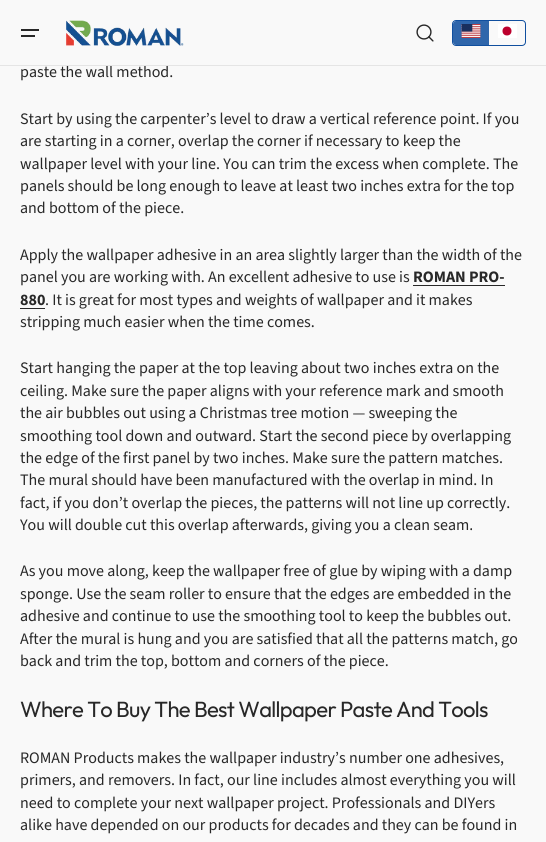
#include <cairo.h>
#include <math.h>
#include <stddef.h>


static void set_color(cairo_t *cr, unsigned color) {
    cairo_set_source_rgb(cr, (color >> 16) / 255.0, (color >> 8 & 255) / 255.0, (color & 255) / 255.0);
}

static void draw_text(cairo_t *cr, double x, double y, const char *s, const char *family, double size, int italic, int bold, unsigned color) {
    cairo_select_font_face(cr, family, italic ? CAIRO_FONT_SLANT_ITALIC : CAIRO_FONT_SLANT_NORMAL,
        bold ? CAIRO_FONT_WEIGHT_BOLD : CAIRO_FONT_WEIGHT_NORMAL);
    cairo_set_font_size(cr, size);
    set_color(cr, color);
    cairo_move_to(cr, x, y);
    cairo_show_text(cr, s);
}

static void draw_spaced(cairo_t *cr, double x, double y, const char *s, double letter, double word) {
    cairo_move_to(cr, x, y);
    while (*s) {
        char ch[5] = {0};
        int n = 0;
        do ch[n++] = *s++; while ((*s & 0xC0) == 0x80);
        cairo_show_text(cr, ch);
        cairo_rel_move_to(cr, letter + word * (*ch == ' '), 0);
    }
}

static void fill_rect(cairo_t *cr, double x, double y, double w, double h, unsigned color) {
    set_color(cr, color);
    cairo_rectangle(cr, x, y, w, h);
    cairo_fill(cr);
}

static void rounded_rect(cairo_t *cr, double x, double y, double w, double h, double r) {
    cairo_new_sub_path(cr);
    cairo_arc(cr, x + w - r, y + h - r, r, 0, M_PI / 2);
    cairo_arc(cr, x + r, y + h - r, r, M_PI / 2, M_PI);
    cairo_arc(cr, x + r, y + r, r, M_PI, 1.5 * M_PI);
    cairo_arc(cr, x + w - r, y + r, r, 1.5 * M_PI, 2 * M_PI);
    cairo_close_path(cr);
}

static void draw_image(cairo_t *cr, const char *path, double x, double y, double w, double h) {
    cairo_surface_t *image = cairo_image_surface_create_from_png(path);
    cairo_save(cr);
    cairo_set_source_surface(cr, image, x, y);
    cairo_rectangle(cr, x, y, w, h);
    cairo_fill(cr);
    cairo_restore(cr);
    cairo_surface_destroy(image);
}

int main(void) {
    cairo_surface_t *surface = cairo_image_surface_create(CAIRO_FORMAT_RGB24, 546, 842);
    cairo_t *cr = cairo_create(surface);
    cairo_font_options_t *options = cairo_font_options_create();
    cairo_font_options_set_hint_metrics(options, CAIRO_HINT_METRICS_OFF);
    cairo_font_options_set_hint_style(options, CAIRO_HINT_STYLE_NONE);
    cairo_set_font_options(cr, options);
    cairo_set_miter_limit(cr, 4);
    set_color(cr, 0xF9F9F9);
    cairo_paint(cr);
    fill_rect(cr, 21, 29, 18, 2, 0x282828);
    fill_rect(cr, 21, 35, 14, 2, 0x282828);
    draw_image(cr, "assets/img1.png", 66, 20, 118, 26);
    draw_image(cr, "assets/img2.png", 416, 24, 18, 18);
    rounded_rect(cr, 452.5, 20.5, 73, 25, 3.5);
    set_color(cr, 0x104F9F);
    cairo_set_line_width(cr, 1);
    cairo_stroke(cr);
    cairo_set_source_rgba(cr, 0.063, 0.31, 0.624, 0.86);
    cairo_new_path(cr);
    cairo_move_to(cr, 456, 21);
    cairo_line_to(cr, 489, 21);
    cairo_line_to(cr, 489, 45);
    cairo_line_to(cr, 456, 45);
    cairo_curve_to(cr, 454.5, 45, 453, 43.5, 453, 42);
    cairo_line_to(cr, 453, 24);
    cairo_curve_to(cr, 453, 22.5, 454.5, 21, 456, 21);
    cairo_close_path(cr);
    cairo_fill(cr);
    draw_image(cr, "assets/img3.png", 461, 24, 20, 14);
    fill_rect(cr, 498, 24, 19, 14, 0xFFFFFF);
    set_color(cr, 0xBC002D);
    cairo_arc(cr, 507, 31, 4.5, 0, 2 * M_PI);
    cairo_fill(cr);
    draw_text(cr, 20, 77, "paste the wall method.", "Source Sans Pro", 16, 0, 0, 0x282828);
    fill_rect(cr, 0, 65, 546, 1, 0xE5E5E5);
    draw_text(cr, 20, 124, "Start by using the carpenter’s level to draw a vertical reference point. If you", "Source Sans Pro", 16, 0, 0, 0x282828);
    draw_text(cr, 20, 146, "are starting in a corner, overlap the corner if necessary to keep the", "Source Sans Pro", 16, 0, 0, 0x282828);
    draw_text(cr, 20, 169, "wallpaper level with your line. You can trim the excess when complete. The", "Source Sans Pro", 16, 0, 0, 0x282828);
    draw_text(cr, 20, 191, "panels should be long enough to leave at least two inches extra for the top", "Source Sans Pro", 16, 0, 0, 0x282828);
    draw_text(cr, 20, 213, "and bottom of the piece.", "Source Sans Pro", 16, 0, 0, 0x282828);
    draw_text(cr, 20, 260, "Apply the wallpaper adhesive in an area slightly larger than the width of the", "Source Sans Pro", 16, 0, 0, 0x282828);
    draw_text(cr, 20, 282, "panel you are working with. An excellent adhesive to use is", "Source Sans Pro", 16, 0, 0, 0x282828);
    draw_text(cr, 413, 282, "ROMAN PRO-", "Source Sans Pro", 16, 0, 1, 0x282828);
    fill_rect(cr, 413, 285, 92, 1, 0x282828);
    draw_text(cr, 20, 305, "880", "Source Sans Pro", 16, 0, 1, 0x282828);
    fill_rect(cr, 20, 308, 25, 1, 0x282828);
    draw_text(cr, 45, 305, ". It is great for most types and weights of wallpaper and it makes", "Source Sans Pro", 16, 0, 0, 0x282828);
    draw_text(cr, 20, 327, "stripping much easier when the time comes.", "Source Sans Pro", 16, 0, 0, 0x282828);
    draw_text(cr, 20, 373, "Start hanging the paper at the top leaving about two inches extra on the", "Source Sans Pro", 16, 0, 0, 0x282828);
    draw_text(cr, 20, 396, "ceiling. Make sure the paper aligns with your reference mark and smooth", "Source Sans Pro", 16, 0, 0, 0x282828);
    draw_text(cr, 20, 418, "the air bubbles out using a Christmas tree motion — sweeping the", "Source Sans Pro", 16, 0, 0, 0x282828);
    draw_text(cr, 20, 441, "smoothing tool down and outward. Start the second piece by overlapping", "Source Sans Pro", 16, 0, 0, 0x282828);
    draw_text(cr, 20, 463, "the edge of the first panel by two inches. Make sure the pattern matches.", "Source Sans Pro", 16, 0, 0, 0x282828);
    draw_text(cr, 20, 485, "The mural should have been manufactured with the overlap in mind. In", "Source Sans Pro", 16, 0, 0, 0x282828);
    draw_text(cr, 20, 508, "fact, if you don’t overlap the pieces, the patterns will not line up correctly.", "Source Sans Pro", 16, 0, 0, 0x282828);
    draw_text(cr, 20, 530, "You will double cut this overlap afterwards, giving you a clean seam.", "Source Sans Pro", 16, 0, 0, 0x282828);
    draw_text(cr, 20, 576, "As you move along, keep the wallpaper free of glue by wiping with a damp", "Source Sans Pro", 16, 0, 0, 0x282828);
    draw_text(cr, 20, 599, "sponge. Use the seam roller to ensure that the edges are embedded in the", "Source Sans Pro", 16, 0, 0, 0x282828);
    draw_text(cr, 20, 621, "adhesive and continue to use the smoothing tool to keep the bubbles out.", "Source Sans Pro", 16, 0, 0, 0x282828);
    draw_text(cr, 20, 644, "After the mural is hung and you are satisfied that all the patterns match, go", "Source Sans Pro", 16, 0, 0, 0x282828);
    draw_text(cr, 20, 666, "back and trim the top, bottom and corners of the piece.", "Source Sans Pro", 16, 0, 0, 0x282828);
    cairo_select_font_face(cr, "Outfit", CAIRO_FONT_SLANT_NORMAL, CAIRO_FONT_WEIGHT_NORMAL);
    cairo_set_font_size(cr, 22);
    draw_spaced(cr, 20, 717, "Where To Buy The Best Wallpaper Paste And Tools", -0.65, 0);
    draw_text(cr, 20, 763, "ROMAN Products makes the wallpaper industry’s number one adhesives,", "Source Sans Pro", 16, 0, 0, 0x282828);
    draw_text(cr, 20, 785, "primers, and removers. In fact, our line includes almost everything you will", "Source Sans Pro", 16, 0, 0, 0x282828);
    draw_text(cr, 20, 808, "need to complete your next wallpaper project. Professionals and DIYers", "Source Sans Pro", 16, 0, 0, 0x282828);
    draw_text(cr, 20, 830, "alike have depended on our products for decades and they can be found in", "Source Sans Pro", 16, 0, 0, 0x282828);
    cairo_surface_write_to_png(surface, "output.png");
    cairo_font_options_destroy(options);
    cairo_destroy(cr);
    cairo_surface_destroy(surface);
    return 0;
}
